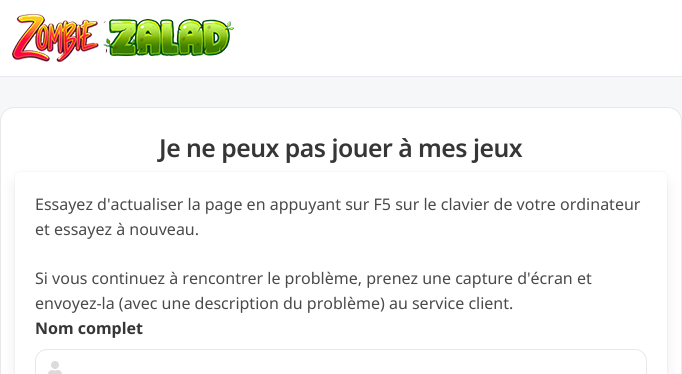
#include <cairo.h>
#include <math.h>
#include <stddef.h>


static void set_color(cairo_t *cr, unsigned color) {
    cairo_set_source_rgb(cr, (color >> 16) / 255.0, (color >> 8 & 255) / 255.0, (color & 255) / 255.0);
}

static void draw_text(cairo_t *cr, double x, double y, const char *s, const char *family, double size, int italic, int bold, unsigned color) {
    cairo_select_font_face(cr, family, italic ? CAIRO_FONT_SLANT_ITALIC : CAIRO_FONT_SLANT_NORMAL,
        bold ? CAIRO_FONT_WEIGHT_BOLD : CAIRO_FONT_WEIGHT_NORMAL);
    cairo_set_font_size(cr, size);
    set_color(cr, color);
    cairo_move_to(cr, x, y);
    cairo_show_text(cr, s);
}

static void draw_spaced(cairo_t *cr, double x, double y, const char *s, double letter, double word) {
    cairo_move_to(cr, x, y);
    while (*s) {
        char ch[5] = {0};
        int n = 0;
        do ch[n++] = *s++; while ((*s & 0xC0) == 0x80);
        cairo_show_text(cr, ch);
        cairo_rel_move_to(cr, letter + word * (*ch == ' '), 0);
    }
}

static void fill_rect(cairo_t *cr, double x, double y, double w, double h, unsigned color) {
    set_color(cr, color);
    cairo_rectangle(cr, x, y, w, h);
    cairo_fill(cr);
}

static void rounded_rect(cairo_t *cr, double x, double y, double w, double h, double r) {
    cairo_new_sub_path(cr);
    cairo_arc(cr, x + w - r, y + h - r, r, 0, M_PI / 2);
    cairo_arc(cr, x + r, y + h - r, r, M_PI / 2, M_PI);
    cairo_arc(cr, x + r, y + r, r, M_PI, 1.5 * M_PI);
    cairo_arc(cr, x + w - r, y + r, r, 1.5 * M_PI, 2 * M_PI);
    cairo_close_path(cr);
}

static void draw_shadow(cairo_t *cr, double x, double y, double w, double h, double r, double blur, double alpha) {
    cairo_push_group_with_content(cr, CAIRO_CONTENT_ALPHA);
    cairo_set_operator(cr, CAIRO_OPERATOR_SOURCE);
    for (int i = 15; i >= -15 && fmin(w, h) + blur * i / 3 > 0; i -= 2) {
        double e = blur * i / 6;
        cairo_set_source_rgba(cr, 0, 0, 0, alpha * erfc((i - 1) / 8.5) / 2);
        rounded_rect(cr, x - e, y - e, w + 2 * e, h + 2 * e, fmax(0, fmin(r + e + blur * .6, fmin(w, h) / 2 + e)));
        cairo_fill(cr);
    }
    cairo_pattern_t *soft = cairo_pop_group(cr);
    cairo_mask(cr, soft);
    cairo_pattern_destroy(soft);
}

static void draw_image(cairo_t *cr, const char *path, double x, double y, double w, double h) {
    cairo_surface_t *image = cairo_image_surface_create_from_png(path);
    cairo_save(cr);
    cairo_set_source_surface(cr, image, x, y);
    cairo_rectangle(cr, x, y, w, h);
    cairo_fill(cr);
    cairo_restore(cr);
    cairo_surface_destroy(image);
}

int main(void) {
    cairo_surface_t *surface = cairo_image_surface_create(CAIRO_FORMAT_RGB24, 682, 374);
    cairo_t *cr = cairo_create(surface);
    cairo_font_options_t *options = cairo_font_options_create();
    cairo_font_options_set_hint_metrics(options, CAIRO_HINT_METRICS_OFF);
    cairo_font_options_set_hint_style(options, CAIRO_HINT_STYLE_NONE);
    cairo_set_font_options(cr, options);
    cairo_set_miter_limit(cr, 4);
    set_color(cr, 0xFFFFFF);
    cairo_paint(cr);
    fill_rect(cr, 0, 76, 682, 1, 0xE8E9ED);
    draw_image(cr, "assets/img1.png", 12, 14, 222, 48);
    fill_rect(cr, 0, 77, 682, 44, 0xF6F7F9);
    set_color(cr, 0xFFFFFF);
    rounded_rect(cr, 0, 107, 682, 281, 14);
    cairo_fill(cr);
    rounded_rect(cr, 0.5, 107.5, 681, 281, 13.5);
    cairo_set_source_rgba(cr, 0.898, 0.906, 0.922, 0.95);
    cairo_set_line_width(cr, 1);
    cairo_stroke(cr);
    rounded_rect(cr, 14.5, 171.5, 653, 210, 6.5);
    set_color(cr, 0xFAFAFA);
    cairo_stroke(cr);
    set_color(cr, 0x0A0A0A);
    draw_shadow(cr, 17, 182, 648, 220, 4, 8, 0.1);
    cairo_select_font_face(cr, "Noto Sans SemiBold", CAIRO_FONT_SLANT_NORMAL, CAIRO_FONT_WEIGHT_NORMAL);
    cairo_set_font_size(cr, 24.75);
    set_color(cr, 0x363636);
    draw_spaced(cr, 159, 157, "Je ne peux pas jouer à mes jeux", -0.5, 0);
    set_color(cr, 0xFFFFFF);
    rounded_rect(cr, 15, 172, 652, 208, 6);
    cairo_fill(cr);
    draw_text(cr, 35, 210, "Essayez d'actualiser la page en appuyant sur F5 sur le clavier de votre ordinateur", "Noto Sans", 16, 0, 0, 0x4A4A4A);
    draw_text(cr, 35, 235, "et essayez à nouveau.", "Noto Sans", 16, 0, 0, 0x4A4A4A);
    draw_text(cr, 35, 284, "Si vous continuez à rencontrer le problème, prenez une capture d'écran et", "Noto Sans", 16, 0, 0, 0x4A4A4A);
    draw_text(cr, 35, 309, "envoyez-la (avec une description du problème) au service client.", "Noto Sans", 16, 0, 0, 0x4A4A4A);
    draw_text(cr, 35, 334, "Nom complet", "Noto Sans", 16, 0, 1, 0x363636);
    rounded_rect(cr, 35.5, 349.5, 611, 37, 11.5);
    set_color(cr, 0xE6E8EC);
    cairo_stroke(cr);
    draw_image(cr, "assets/img2.png", 48, 361, 14, 13);
    cairo_surface_write_to_png(surface, "output.png");
    cairo_font_options_destroy(options);
    cairo_destroy(cr);
    cairo_surface_destroy(surface);
    return 0;
}
